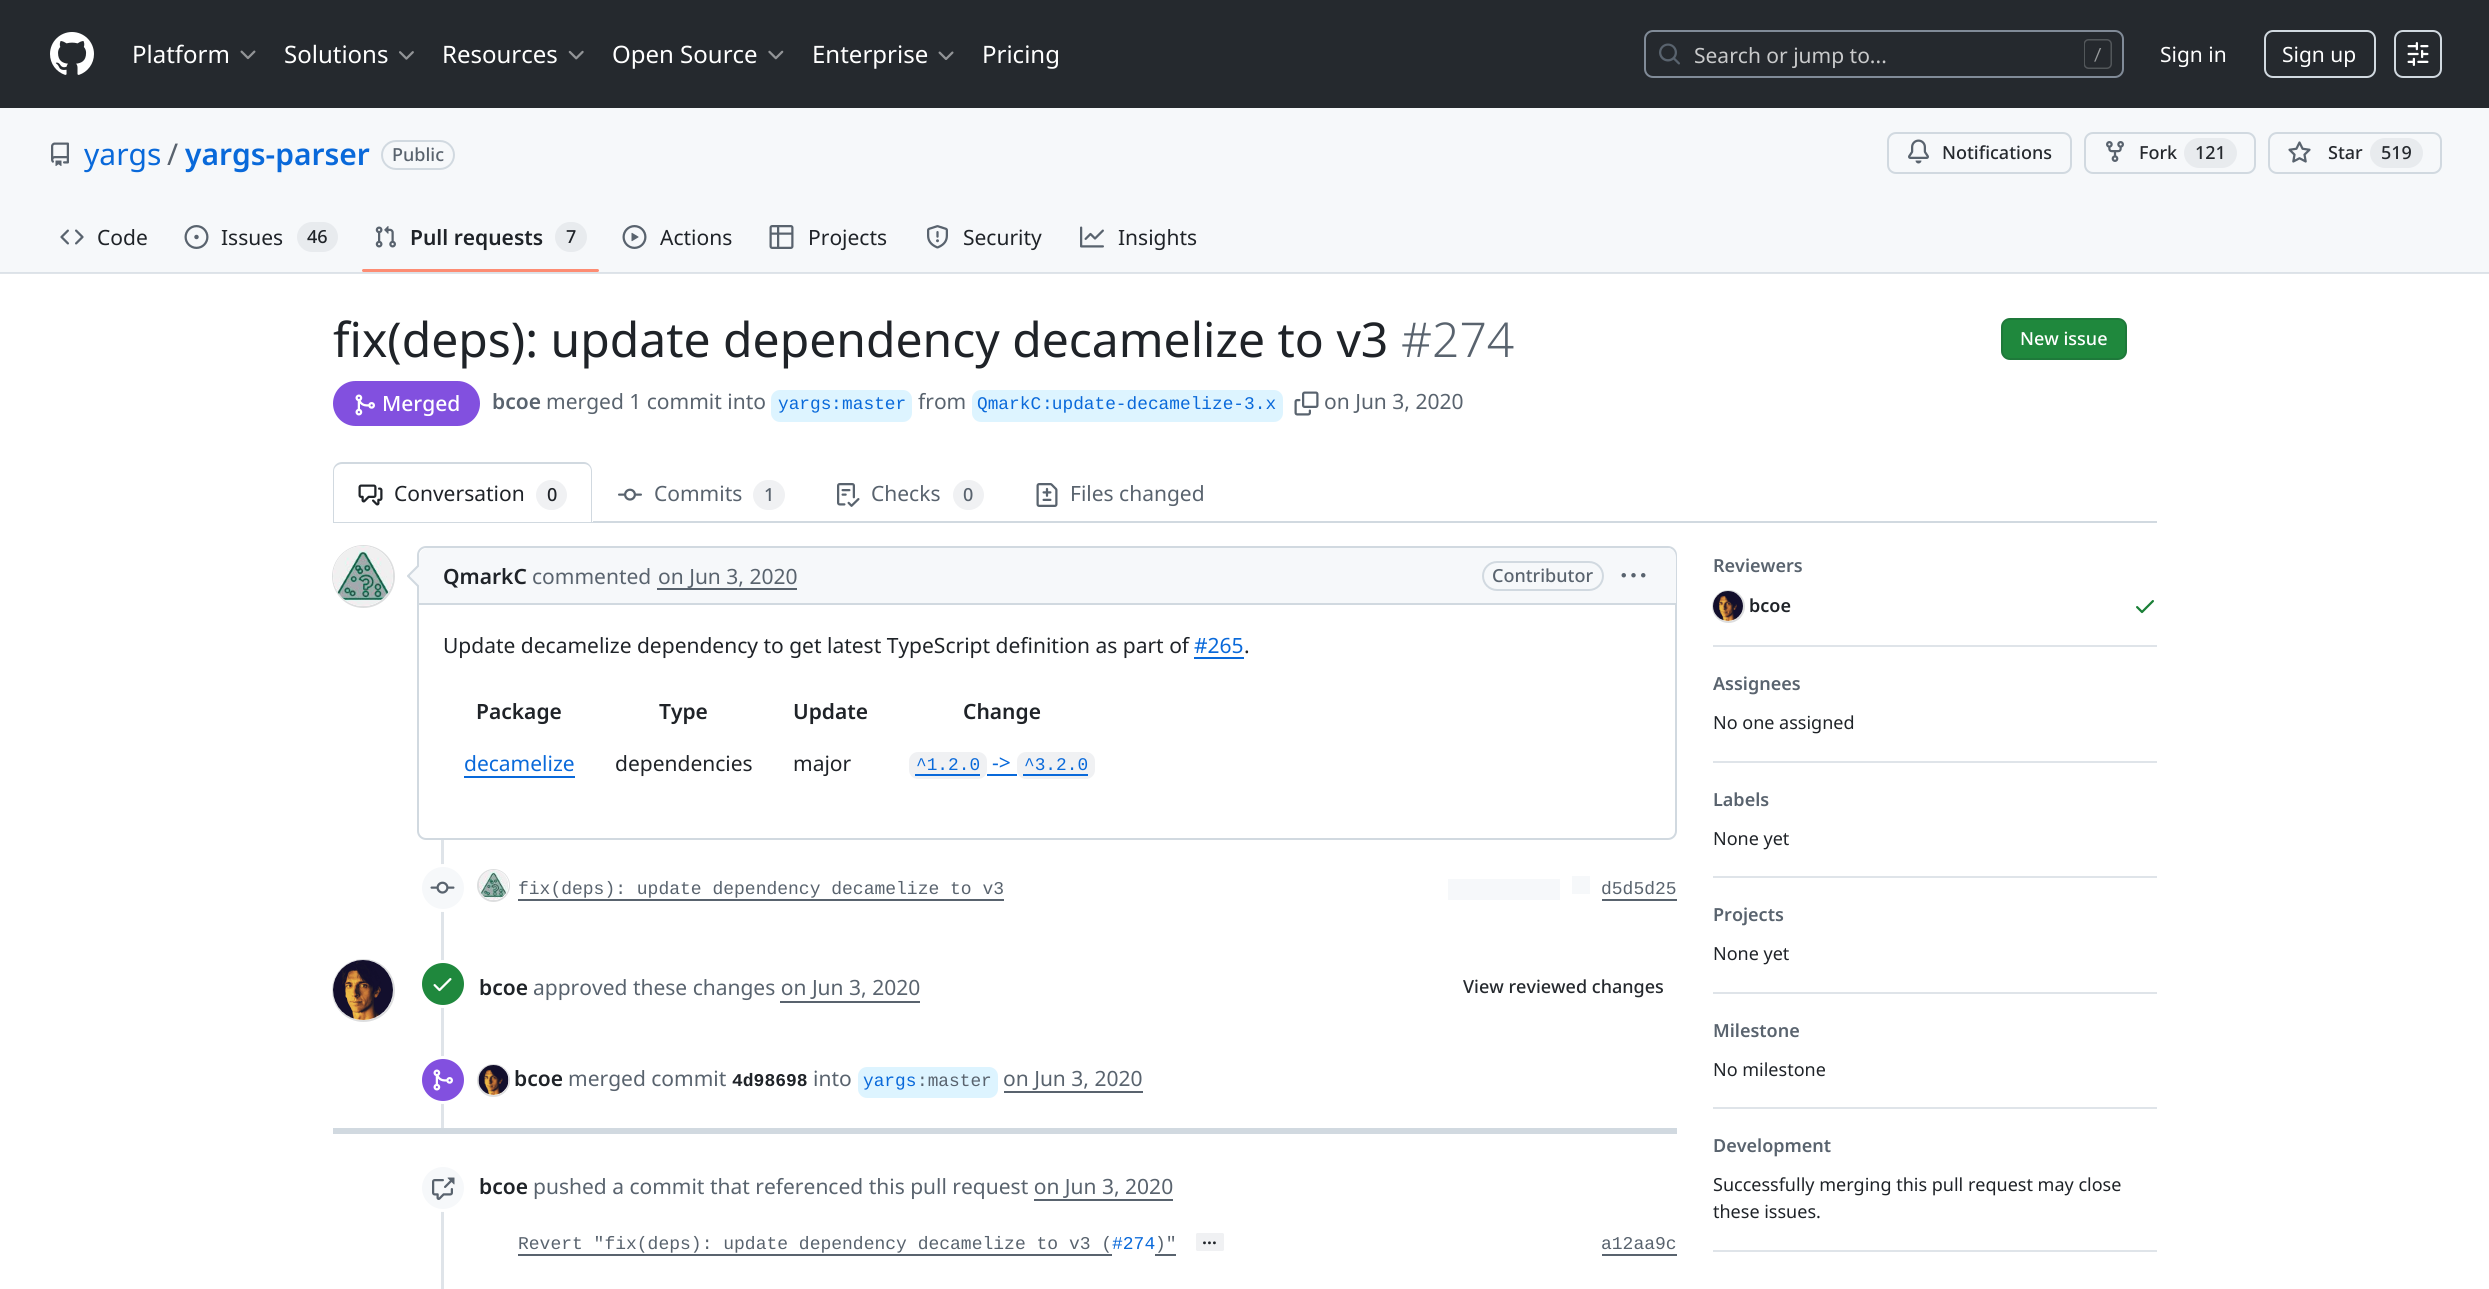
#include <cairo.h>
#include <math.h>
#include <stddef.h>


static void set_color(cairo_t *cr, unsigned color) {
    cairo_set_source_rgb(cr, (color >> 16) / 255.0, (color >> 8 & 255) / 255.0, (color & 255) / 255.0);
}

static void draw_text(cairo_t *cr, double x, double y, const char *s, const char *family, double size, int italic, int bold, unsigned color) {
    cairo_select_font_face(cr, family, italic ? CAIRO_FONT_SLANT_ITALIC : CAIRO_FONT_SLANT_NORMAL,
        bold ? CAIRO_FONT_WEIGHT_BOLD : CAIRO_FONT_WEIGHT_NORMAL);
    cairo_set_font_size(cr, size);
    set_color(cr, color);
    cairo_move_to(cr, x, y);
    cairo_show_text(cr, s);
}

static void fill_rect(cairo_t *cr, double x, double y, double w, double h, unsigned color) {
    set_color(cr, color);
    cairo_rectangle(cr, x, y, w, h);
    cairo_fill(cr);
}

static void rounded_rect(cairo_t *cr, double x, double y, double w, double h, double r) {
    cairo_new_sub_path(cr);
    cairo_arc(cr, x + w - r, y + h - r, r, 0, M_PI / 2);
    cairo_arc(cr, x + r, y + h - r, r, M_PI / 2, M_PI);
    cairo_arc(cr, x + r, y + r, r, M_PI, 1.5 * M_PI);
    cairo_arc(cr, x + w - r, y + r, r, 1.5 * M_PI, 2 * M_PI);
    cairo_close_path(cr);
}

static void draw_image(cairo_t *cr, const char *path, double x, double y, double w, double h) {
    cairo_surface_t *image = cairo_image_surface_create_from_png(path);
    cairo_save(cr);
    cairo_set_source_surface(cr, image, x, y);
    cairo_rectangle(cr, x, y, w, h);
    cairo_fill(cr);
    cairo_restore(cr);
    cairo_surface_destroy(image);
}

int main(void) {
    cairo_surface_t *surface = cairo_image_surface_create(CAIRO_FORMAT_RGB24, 2489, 1289);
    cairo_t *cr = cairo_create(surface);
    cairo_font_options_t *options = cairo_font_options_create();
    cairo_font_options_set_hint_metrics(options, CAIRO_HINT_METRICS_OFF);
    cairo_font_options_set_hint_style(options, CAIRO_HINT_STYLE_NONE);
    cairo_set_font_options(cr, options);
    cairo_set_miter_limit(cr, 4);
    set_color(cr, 0xFFFFFF);
    cairo_paint(cr);
    fill_rect(cr, 0, 273, 2489, 1, 0xDFE4E9);
    fill_rect(cr, 0, 0, 2489, 108, 0x25292E);
    draw_image(cr, "assets/img1.png", 50, 32, 44, 43);
    draw_text(cr, 132, 63, "Platform", "Noto Sans", 24, 0, 0, 0xFFFFFF);
    draw_image(cr, "assets/img2.png", 240, 50, 16, 10);
    draw_text(cr, 284, 63, "Solutions", "Noto Sans", 24, 0, 0, 0xFFFFFF);
    draw_image(cr, "assets/img3.png", 399, 51, 15, 9);
    draw_text(cr, 442, 63, "Resources", "Noto Sans", 24, 0, 0, 0xFFFFFF);
    draw_image(cr, "assets/img4.png", 568, 50, 16, 10);
    draw_text(cr, 612, 63, "Open Source", "Noto Sans", 24, 0, 0, 0xFFFFFF);
    draw_image(cr, "assets/img5.png", 768, 50, 16, 10);
    draw_text(cr, 812, 63, "Enterprise", "Noto Sans", 24, 0, 0, 0xFFFFFF);
    draw_image(cr, "assets/img6.png", 938, 51, 16, 9);
    draw_text(cr, 982, 63, "Pricing", "Noto Sans", 24, 0, 0, 0xFFFFFF);
    rounded_rect(cr, 1645, 31, 478, 46, 8);
    set_color(cr, 0x818B98);
    cairo_stroke(cr);
    draw_image(cr, "assets/img7.png", 1659, 43, 21, 22);
    draw_text(cr, 1694, 63, "Search or jump to...", "Noto Sans", 21, 0, 0, 0xC9CACB);
    draw_image(cr, "assets/img8.png", 2084, 39, 28, 30);
    draw_text(cr, 2160, 62, "Sign in", "Noto Sans", 21, 0, 0, 0xFFFFFF);
    rounded_rect(cr, 2265, 31, 110, 46, 8);
    set_color(cr, 0xD1D9E0);
    cairo_stroke(cr);
    draw_text(cr, 2282, 62, "Sign up", "Noto Sans", 21, 0, 0, 0xFFFFFF);
    rounded_rect(cr, 2395, 31, 46, 46, 8);
    set_color(cr, 0xD1D9E0);
    cairo_stroke(cr);
    draw_image(cr, "assets/img9.png", 2407, 42, 22, 24);
    fill_rect(cr, 0, 108, 2489, 164, 0xF6F8FA);
    fill_rect(cr, 0, 272, 2489, 1, 0xDCE2E8);
    draw_image(cr, "assets/img10.png", 51, 142, 18, 24);
    draw_text(cr, 84, 165, "yargs", "Noto Sans", 30, 0, 0, 0x0969DA);
    draw_text(cr, 167, 165, "/", "Noto Sans", 30, 0, 0, 0x59636E);
    draw_text(cr, 185, 165, "yargs-parser", "Noto Sans SemiBold", 30, 0, 0, 0x0969DA);
    rounded_rect(cr, 382, 141, 72, 28, 14);
    set_color(cr, 0xD1D9E0);
    cairo_stroke(cr);
    draw_text(cr, 392, 161, "Public", "Noto Sans Medium", 18, 0, 0, 0x59636E);
    rounded_rect(cr, 1888, 133, 183, 40, 8);
    set_color(cr, 0xD1D9E0);
    cairo_stroke(cr);
    draw_image(cr, "assets/img11.png", 1908, 139, 21, 25);
    draw_text(cr, 1942, 159, "Notifications", "Noto Sans Medium", 18, 0, 0, 0x25292E);
    rounded_rect(cr, 2085, 133, 170, 40, 8);
    set_color(cr, 0xD1D9E0);
    cairo_stroke(cr);
    draw_image(cr, "assets/img12.png", 2106, 141, 18, 21);
    draw_text(cr, 2139, 159, "Fork", "Noto Sans Medium", 18, 0, 0, 0x25292E);
    set_color(cr, 0xE8EBEE);
    rounded_rect(cr, 2184, 138, 53, 30, 15);
    cairo_fill(cr);
    draw_text(cr, 2195, 159, "121", "Noto Sans Medium", 18, 0, 0, 0x25292E);
    rounded_rect(cr, 2269, 133, 172, 40, 8);
    set_color(cr, 0xD1D9E0);
    cairo_stroke(cr);
    draw_image(cr, "assets/img13.png", 2288, 141, 23, 22);
    draw_text(cr, 2328, 159, "Star", "Noto Sans Medium", 18, 0, 0, 0x25292E);
    set_color(cr, 0xE8EBEE);
    rounded_rect(cr, 2370, 138, 53, 30, 15);
    cairo_fill(cr);
    draw_text(cr, 2381, 159, "519", "Noto Sans Medium", 18, 0, 0, 0x25292E);
    draw_image(cr, "assets/img14.png", 60, 229, 24, 16);
    draw_text(cr, 97, 245, "Code", "Noto Sans", 21, 0, 0, 0x1F2328);
    draw_image(cr, "assets/img15.png", 184, 225, 25, 24);
    draw_text(cr, 221, 245, "Issues", "Noto Sans", 21, 0, 0, 0x1F2328);
    set_color(cr, 0xE8EBEE);
    rounded_rect(cr, 297, 222, 41, 30, 15);
    cairo_fill(cr);
    draw_text(cr, 307, 243, "46", "Noto Sans Medium", 18, 0, 0, 0x1F2328);
    draw_image(cr, "assets/img16.png", 375, 226, 21, 22);
    draw_text(cr, 410, 245, "Pull requests", "Noto Sans SemiBold", 21, 0, 0, 0x1F2328);
    set_color(cr, 0xE8EBEE);
    rounded_rect(cr, 555, 222, 32, 30, 15);
    cairo_fill(cr);
    draw_text(cr, 566, 243, "7", "Noto Sans Medium", 18, 0, 0, 0x1F2328);
    set_color(cr, 0xFD8C73);
    rounded_rect(cr, 362, 269, 237, 3, 1.5);
    cairo_fill(cr);
    draw_image(cr, "assets/img17.png", 622, 225, 25, 24);
    draw_text(cr, 660, 245, "Actions", "Noto Sans", 21, 0, 0, 0x1F2328);
    draw_image(cr, "assets/img18.png", 769, 225, 25, 24);
    draw_text(cr, 808, 245, "Projects", "Noto Sans", 21, 0, 0, 0x1F2328);
    draw_image(cr, "assets/img19.png", 927, 225, 21, 24);
    draw_text(cr, 963, 245, "Security", "Noto Sans", 21, 0, 0, 0x1F2328);
    draw_image(cr, "assets/img20.png", 1080, 226, 24, 22);
    draw_text(cr, 1118, 245, "Insights", "Noto Sans", 21, 0, 0, 0x1F2328);
    draw_text(cr, 333, 357, "fix(deps): update dependency decamelize to v3", "Noto Sans", 48, 0, 0, 0x1F2328);
    draw_text(cr, 1401, 357, "#274", "Noto Sans Light", 48, 0, 0, 0x59636E);
    set_color(cr, 0x1F883D);
    rounded_rect(cr, 2001, 318, 126, 42, 9);
    cairo_fill(cr);
    rounded_rect(cr, 2002, 319, 124, 40, 8);
    cairo_set_source_rgba(cr, 0.122, 0.137, 0.157, 0.15);
    cairo_stroke(cr);
    draw_text(cr, 2020, 345, "New issue", "Noto Sans Medium", 18, 0, 0, 0xFFFFFF);
    set_color(cr, 0x8250DF);
    rounded_rect(cr, 333, 381, 147, 45, 22.5);
    cairo_fill(cr);
    draw_image(cr, "assets/img21.png", 355, 394, 20, 22);
    draw_text(cr, 382, 411, "Merged", "Noto Sans Medium", 21, 0, 0, 0xFFFFFF);
    draw_text(cr, 492, 409, "bcoe", "Noto Sans SemiBold", 21, 0, 0, 0x59636E);
    draw_text(cr, 546, 409, "merged 1 commit into", "Noto Sans", 21, 0, 0, 0x59636E);
    set_color(cr, 0xDDF4FF);
    rounded_rect(cr, 771, 390, 141, 32, 9);
    cairo_fill(cr);
    draw_text(cr, 831, 409, ":", "Liberation Mono", 17.8, 0, 0, 0x0969DA);
    draw_text(cr, 778, 409, "yargs master", "Liberation Mono", 17.8, 0, 0, 0x0969DA);
    draw_text(cr, 918, 409, "from", "Noto Sans", 21, 0, 0, 0x59636E);
    set_color(cr, 0xDDF4FF);
    rounded_rect(cr, 972, 390, 311, 32, 9);
    cairo_fill(cr);
    draw_text(cr, 1042, 409, ":", "Liberation Mono", 17.8, 0, 0, 0x0969DA);
    draw_text(cr, 977, 409, "QmarkC update-decamelize-3.x", "Liberation Mono", 17.8, 0, 0, 0x0969DA);
    draw_image(cr, "assets/img22.png", 1294, 391, 25, 25);
    draw_text(cr, 1324, 409, "on Jun 3, 2020", "Noto Sans", 21, 0, 0, 0x59636E);
    fill_rect(cr, 333, 521, 1824, 2, 0xD1D9E0);
    set_color(cr, 0xFFFFFF);
    cairo_new_path(cr);
    cairo_move_to(cr, 342, 462);
    cairo_line_to(cr, 584, 462);
    cairo_curve_to(cr, 589, 462, 593, 466, 593, 471);
    cairo_line_to(cr, 593, 522);
    cairo_line_to(cr, 333, 522);
    cairo_line_to(cr, 333, 471);
    cairo_curve_to(cr, 333, 466, 337, 462, 342, 462);
    cairo_close_path(cr);
    cairo_fill(cr);
    set_color(cr, 0xD1D9E0);
    cairo_set_fill_rule(cr, CAIRO_FILL_RULE_EVEN_ODD);
    cairo_new_path(cr);
    cairo_move_to(cr, 342, 462);
    cairo_line_to(cr, 584, 462);
    cairo_curve_to(cr, 588, 462, 592, 466, 592, 471);
    cairo_line_to(cr, 592, 522);
    cairo_line_to(cr, 333, 522);
    cairo_line_to(cr, 333, 471);
    cairo_curve_to(cr, 333, 466, 337, 462, 342, 462);
    cairo_close_path(cr);
    cairo_move_to(cr, 342, 464);
    cairo_line_to(cr, 584, 464);
    cairo_curve_to(cr, 588, 464, 591, 467, 591, 471);
    cairo_line_to(cr, 591, 522);
    cairo_line_to(cr, 334, 522);
    cairo_line_to(cr, 334, 471);
    cairo_curve_to(cr, 334, 467, 338, 464, 342, 464);
    cairo_close_path(cr);
    cairo_fill(cr);
    draw_image(cr, "assets/img23.png", 358, 484, 25, 22);
    draw_text(cr, 394, 501, "Conversation", "Noto Sans", 21, 0, 0, 0x1F2328);
    set_color(cr, 0xF0F1F3);
    rounded_rect(cr, 536, 480, 31, 30, 15);
    cairo_fill(cr);
    draw_text(cr, 547, 501, "0", "Noto Sans Medium", 18, 0, 0, 0x1F2328);
    draw_image(cr, "assets/img24.png", 618, 488, 24, 13);
    draw_text(cr, 654, 501, "Commits", "Noto Sans", 21, 0, 0, 0x59636E);
    set_color(cr, 0xF0F1F3);
    rounded_rect(cr, 753, 480, 32, 30, 15);
    cairo_fill(cr);
    draw_text(cr, 764, 501, "1", "Noto Sans Medium", 18, 0, 0, 0x59636E);
    draw_image(cr, "assets/img25.png", 837, 483, 23, 24);
    draw_text(cr, 871, 501, "Checks", "Noto Sans", 21, 0, 0, 0x59636E);
    set_color(cr, 0xF0F1F3);
    rounded_rect(cr, 953, 480, 31, 30, 15);
    cairo_fill(cr);
    draw_text(cr, 963, 501, "0", "Noto Sans Medium", 18, 0, 0, 0x59636E);
    draw_image(cr, "assets/img26.png", 1036, 483, 22, 24);
    draw_text(cr, 1070, 501, "Files changed", "Noto Sans", 21, 0, 0, 0x59636E);
    cairo_new_path(cr);
    cairo_arc(cr, 363.5, 576.5, 30.5, 0, 2 * M_PI);
    set_color(cr, 0xDDDEDF);
    cairo_stroke(cr);
    set_color(cr, 0xFFFFFF);
    cairo_arc(cr, 363, 576, 30, 0, 2 * M_PI);
    cairo_fill(cr);
    draw_image(cr, "assets/img27.png", 333, 546, 60, 60);
    rounded_rect(cr, 418, 547, 1258, 292, 8);
    set_color(cr, 0xD1D9E0);
    cairo_stroke(cr);
    cairo_set_fill_rule(cr, CAIRO_FILL_RULE_WINDING);
    cairo_new_path(cr);
    cairo_move_to(cr, 407, 575.5);
    cairo_line_to(cr, 418.5, 564);
    cairo_line_to(cr, 418.5, 588);
    cairo_line_to(cr, 407, 576.5);
    cairo_close_path(cr);
    cairo_fill(cr);
    set_color(cr, 0xF6F8FA);
    cairo_new_path(cr);
    cairo_move_to(cr, 428, 548);
    cairo_line_to(cr, 1667, 548);
    cairo_curve_to(cr, 1672, 548, 1676, 552, 1676, 557);
    cairo_line_to(cr, 1676, 605);
    cairo_line_to(cr, 419, 605);
    cairo_line_to(cr, 419, 557);
    cairo_curve_to(cr, 419, 552, 423, 548, 428, 548);
    cairo_close_path(cr);
    cairo_fill(cr);
    cairo_new_path(cr);
    cairo_move_to(cr, 410, 575.5);
    cairo_line_to(cr, 421.5, 564);
    cairo_line_to(cr, 421.5, 588);
    cairo_line_to(cr, 410, 576.5);
    cairo_close_path(cr);
    cairo_fill(cr);
    fill_rect(cr, 419, 603, 1257, 2, 0xD1D9E0);
    draw_text(cr, 443, 584, "QmarkC", "Noto Sans SemiBold", 21, 0, 0, 0x1F2328);
    draw_text(cr, 532, 584, "commented", "Noto Sans", 21, 0, 0, 0x59636E);
    draw_text(cr, 658, 584, "on Jun 3, 2020", "Noto Sans", 21, 0, 0, 0x59636E);
    fill_rect(cr, 657, 588, 140, 2, 0x59636E);
    rounded_rect(cr, 1483, 562, 120, 28, 14);
    set_color(cr, 0xD1D9E0);
    cairo_stroke(cr);
    draw_text(cr, 1492, 582, "Contributor", "Noto Sans Medium", 18, 0, 0, 0x59636E);
    draw_image(cr, "assets/img28.png", 1621, 573, 25, 5);
    draw_text(cr, 443, 653, "Update decamelize dependency to get latest TypeScript definition as part of", "Noto Sans", 21, 0, 0, 0x1F2328);
    draw_text(cr, 1194, 653, "#265", "Noto Sans", 21, 0, 0, 0x0969DA);
    fill_rect(cr, 1194, 657, 50, 2, 0x0969DA);
    draw_text(cr, 1244, 653, ".", "Noto Sans", 21, 0, 0, 0x1F2328);
    draw_text(cr, 476, 719, "Package", "Noto Sans SemiBold", 21, 0, 0, 0x1F2328);
    draw_text(cr, 659, 719, "Type", "Noto Sans SemiBold", 21, 0, 0, 0x1F2328);
    draw_text(cr, 793, 719, "Update", "Noto Sans SemiBold", 21, 0, 0, 0x1F2328);
    draw_text(cr, 963, 719, "Change", "Noto Sans SemiBold", 21, 0, 0, 0x1F2328);
    draw_text(cr, 464, 771, "decamelize", "Noto Sans", 21, 0, 0, 0x0969DA);
    fill_rect(cr, 464, 776, 111, 2, 0x0969DA);
    draw_text(cr, 615, 771, "dependencies", "Noto Sans", 21, 0, 0, 0x1F2328);
    draw_text(cr, 793, 771, "major", "Noto Sans", 21, 0, 0, 0x1F2328);
    set_color(cr, 0xF0F1F3);
    rounded_rect(cr, 909, 752, 78, 27, 9);
    cairo_fill(cr);
    draw_text(cr, 916, 770, "^1.2.0", "Liberation Mono", 17.8, 0, 0, 0x0969DA);
    fill_rect(cr, 915, 774, 65, 2, 0x0969DA);
    draw_text(cr, 992, 770, "->", "Noto Sans", 21, 0, 0, 0x0969DA);
    fill_rect(cr, 987, 774, 30, 2, 0x0969DA);
    set_color(cr, 0xF0F1F3);
    rounded_rect(cr, 1017, 752, 78, 27, 9);
    cairo_fill(cr);
    draw_text(cr, 1024, 770, "^3.2.0", "Liberation Mono", 17.8, 0, 0, 0x0969DA);
    fill_rect(cr, 1023, 774, 65, 2, 0x0969DA);
    fill_rect(cr, 441, 840, 3, 288, 0xDFE4E9);
    set_color(cr, 0xF6F8FA);
    cairo_new_path(cr);
    cairo_arc(cr, 443, 888, 22.5, 0, 2 * M_PI);
    cairo_fill_preserve(cr);
    set_color(cr, 0xFFFFFF);
    cairo_set_line_width(cr, 3);
    cairo_stroke(cr);
    draw_image(cr, "assets/img29.png", 430, 881, 25, 13);
    cairo_arc(cr, 493.5, 885.5, 15.5, 0, 2 * M_PI);
    set_color(cr, 0xDDDEDF);
    cairo_set_line_width(cr, 2);
    cairo_stroke(cr);
    set_color(cr, 0xFFFFFF);
    cairo_arc(cr, 494, 885, 15, 0, 2 * M_PI);
    cairo_fill(cr);
    draw_image(cr, "assets/img30.png", 479, 870, 29, 30);
    draw_text(cr, 518, 894, "fix(deps): update dependency decamelize to v3", "Liberation Mono", 18, 0, 0, 0x59636E);
    fill_rect(cr, 518, 899, 486, 2, 0x59636E);
    fill_rect(cr, 1448, 879, 112, 21, 0xF6F8FA);
    fill_rect(cr, 1572, 876, 18, 18, 0xF6F8FA);
    draw_text(cr, 1601, 894, "d5d5d25", "Liberation Mono", 18, 0, 0, 0x59636E);
    fill_rect(cr, 1602, 899, 75, 2, 0x59636E);
    cairo_new_path(cr);
    cairo_arc(cr, 363.5, 990.5, 30.5, 0, 2 * M_PI);
    set_color(cr, 0xDDDEDF);
    cairo_stroke(cr);
    set_color(cr, 0xFFFFFF);
    cairo_arc(cr, 363, 990, 30, 0, 2 * M_PI);
    cairo_fill(cr);
    draw_image(cr, "assets/img31.png", 333, 960, 60, 60);
    set_color(cr, 0x1F883D);
    cairo_arc(cr, 443, 984, 22.5, 0, 2 * M_PI);
    cairo_fill_preserve(cr);
    set_color(cr, 0xFFFFFF);
    cairo_set_line_width(cr, 3);
    cairo_stroke(cr);
    draw_image(cr, "assets/img32.png", 433, 978, 19, 14);
    draw_text(cr, 479, 995, "bcoe", "Noto Sans SemiBold", 21, 0, 0, 0x1F2328);
    draw_text(cr, 533, 995, "approved these changes on Jun 3, 2020", "Noto Sans", 21, 0, 0, 0x59636E);
    fill_rect(cr, 780, 1001, 140, 2, 0x59636E);
    draw_text(cr, 1463, 993, "View reviewed changes", "Noto Sans Medium", 18, 0, 0, 0x25292E);
    set_color(cr, 0x8250DF);
    cairo_new_path(cr);
    cairo_arc(cr, 443, 1080, 22.5, 0, 2 * M_PI);
    cairo_fill_preserve(cr);
    set_color(cr, 0xFFFFFF);
    cairo_stroke(cr);
    draw_image(cr, "assets/img21.png", 433, 1069, 20, 22);
    cairo_arc(cr, 493.5, 1080.5, 15.5, 0, 2 * M_PI);
    set_color(cr, 0xDDDEDF);
    cairo_set_line_width(cr, 2);
    cairo_stroke(cr);
    set_color(cr, 0xFFFFFF);
    cairo_arc(cr, 494, 1080, 15, 0, 2 * M_PI);
    cairo_fill(cr);
    draw_image(cr, "assets/img33.png", 478, 1065, 31, 30);
    draw_text(cr, 514, 1086, "bcoe", "Noto Sans SemiBold", 21, 0, 0, 0x1F2328);
    draw_text(cr, 568, 1086, "merged commit", "Noto Sans", 21, 0, 0, 0x59636E);
    draw_text(cr, 732, 1086, "4d98698", "Liberation Mono", 18, 0, 1, 0x1F2328);
    draw_text(cr, 813, 1086, "into", "Noto Sans", 21, 0, 0, 0x59636E);
    set_color(cr, 0xDDF4FF);
    rounded_rect(cr, 858, 1067, 140, 31, 9);
    cairo_fill(cr);
    draw_text(cr, 863, 1086, "yargs", "Liberation Mono", 17.8, 0, 0, 0x0969DA);
    draw_text(cr, 917, 1086, ":master", "Liberation Mono", 17.8, 0, 0, 0x59636E);
    draw_text(cr, 1003, 1086, "on Jun 3, 2020", "Noto Sans", 21, 0, 0, 0x59636E);
    fill_rect(cr, 1004, 1091, 139, 2, 0x59636E);
    fill_rect(cr, 333, 1128, 1344, 6, 0xD1D9E0);
    fill_rect(cr, 441, 1164, 3, 125, 0xDFE4E9);
    set_color(cr, 0xF6F8FA);
    cairo_new_path(cr);
    cairo_arc(cr, 443, 1188, 22.5, 0, 2 * M_PI);
    cairo_fill_preserve(cr);
    set_color(cr, 0xFFFFFF);
    cairo_set_line_width(cr, 3);
    cairo_stroke(cr);
    draw_image(cr, "assets/img34.png", 432, 1177, 23, 23);
    draw_text(cr, 479, 1194, "bcoe", "Noto Sans SemiBold", 21, 0, 0, 0x1F2328);
    draw_text(cr, 533, 1194, "pushed a commit that referenced this pull request on Jun 3, 2020", "Noto Sans", 21, 0, 0, 0x59636E);
    fill_rect(cr, 1034, 1199, 139, 2, 0x59636E);
    draw_text(cr, 518, 1249, "Revert \"fix(deps): update dependency decamelize to v3 (", "Liberation Mono", 18, 0, 0, 0x59636E);
    fill_rect(cr, 518, 1254, 594, 2, 0x59636E);
    draw_text(cr, 1112, 1249, "#274", "Liberation Mono", 18, 0, 0, 0x0969DA);
    draw_text(cr, 1155, 1249, ")\"", "Liberation Mono", 18, 0, 0, 0x59636E);
    fill_rect(cr, 1155, 1254, 21, 2, 0x59636E);
    set_color(cr, 0xF0F1F3);
    rounded_rect(cr, 1196, 1233, 28, 18, 1.5);
    cairo_fill(cr);
    draw_text(cr, 1202, 1244, "…", "Noto Sans SemiBold", 18, 0, 0, 0x1F2328);
    draw_text(cr, 1601, 1249, "a12aa9c", "Liberation Mono", 18, 0, 0, 0x59636E);
    fill_rect(cr, 1602, 1254, 75, 2, 0x59636E);
    draw_text(cr, 1713, 572, "Reviewers", "Noto Sans SemiBold", 18, 0, 0, 0x59636E);
    cairo_new_path(cr);
    cairo_arc(cr, 1728.5, 606.5, 15.5, 0, 2 * M_PI);
    set_color(cr, 0xDDDEDF);
    cairo_set_line_width(cr, 2);
    cairo_stroke(cr);
    set_color(cr, 0xFFFFFF);
    cairo_arc(cr, 1728, 606, 15, 0, 2 * M_PI);
    cairo_fill(cr);
    draw_image(cr, "assets/img35.png", 1713, 591, 30, 30);
    draw_text(cr, 1749, 612, "bcoe", "Noto Sans SemiBold", 18, 0, 0, 0x1F2328);
    draw_image(cr, "assets/img36.png", 2136, 600, 18, 14);
    fill_rect(cr, 1713, 645, 444, 2, 0xDFE4E9);
    draw_text(cr, 1713, 690, "Assignees", "Noto Sans SemiBold", 18, 0, 0, 0x59636E);
    draw_text(cr, 1713, 729, "No one assigned", "Noto Sans", 18, 0, 0, 0x1F2328);
    fill_rect(cr, 1713, 761, 444, 2, 0xDFE4E9);
    draw_text(cr, 1713, 806, "Labels", "Noto Sans SemiBold", 18, 0, 0, 0x59636E);
    draw_text(cr, 1713, 845, "None yet", "Noto Sans", 18, 0, 0, 0x1F2328);
    fill_rect(cr, 1713, 876, 444, 2, 0xDFE4E9);
    draw_text(cr, 1713, 921, "Projects", "Noto Sans SemiBold", 18, 0, 0, 0x59636E);
    draw_text(cr, 1713, 960, "None yet", "Noto Sans", 18, 0, 0, 0x1F2328);
    fill_rect(cr, 1713, 992, 444, 2, 0xDFE4E9);
    draw_text(cr, 1713, 1037, "Milestone", "Noto Sans SemiBold", 18, 0, 0, 0x59636E);
    draw_text(cr, 1713, 1076, "No milestone", "Noto Sans", 18, 0, 0, 0x1F2328);
    fill_rect(cr, 1713, 1107, 444, 2, 0xDFE4E9);
    draw_text(cr, 1713, 1152, "Development", "Noto Sans SemiBold", 18, 0, 0, 0x59636E);
    draw_text(cr, 1713, 1191, "Successfully merging this pull request may close", "Noto Sans", 18, 0, 0, 0x1F2328);
    draw_text(cr, 1713, 1218, "these issues.", "Noto Sans", 18, 0, 0, 0x1F2328);
    fill_rect(cr, 1713, 1250, 444, 2, 0xDFE4E9);
    cairo_surface_write_to_png(surface, "output.png");
    cairo_font_options_destroy(options);
    cairo_destroy(cr);
    cairo_surface_destroy(surface);
    return 0;
}
